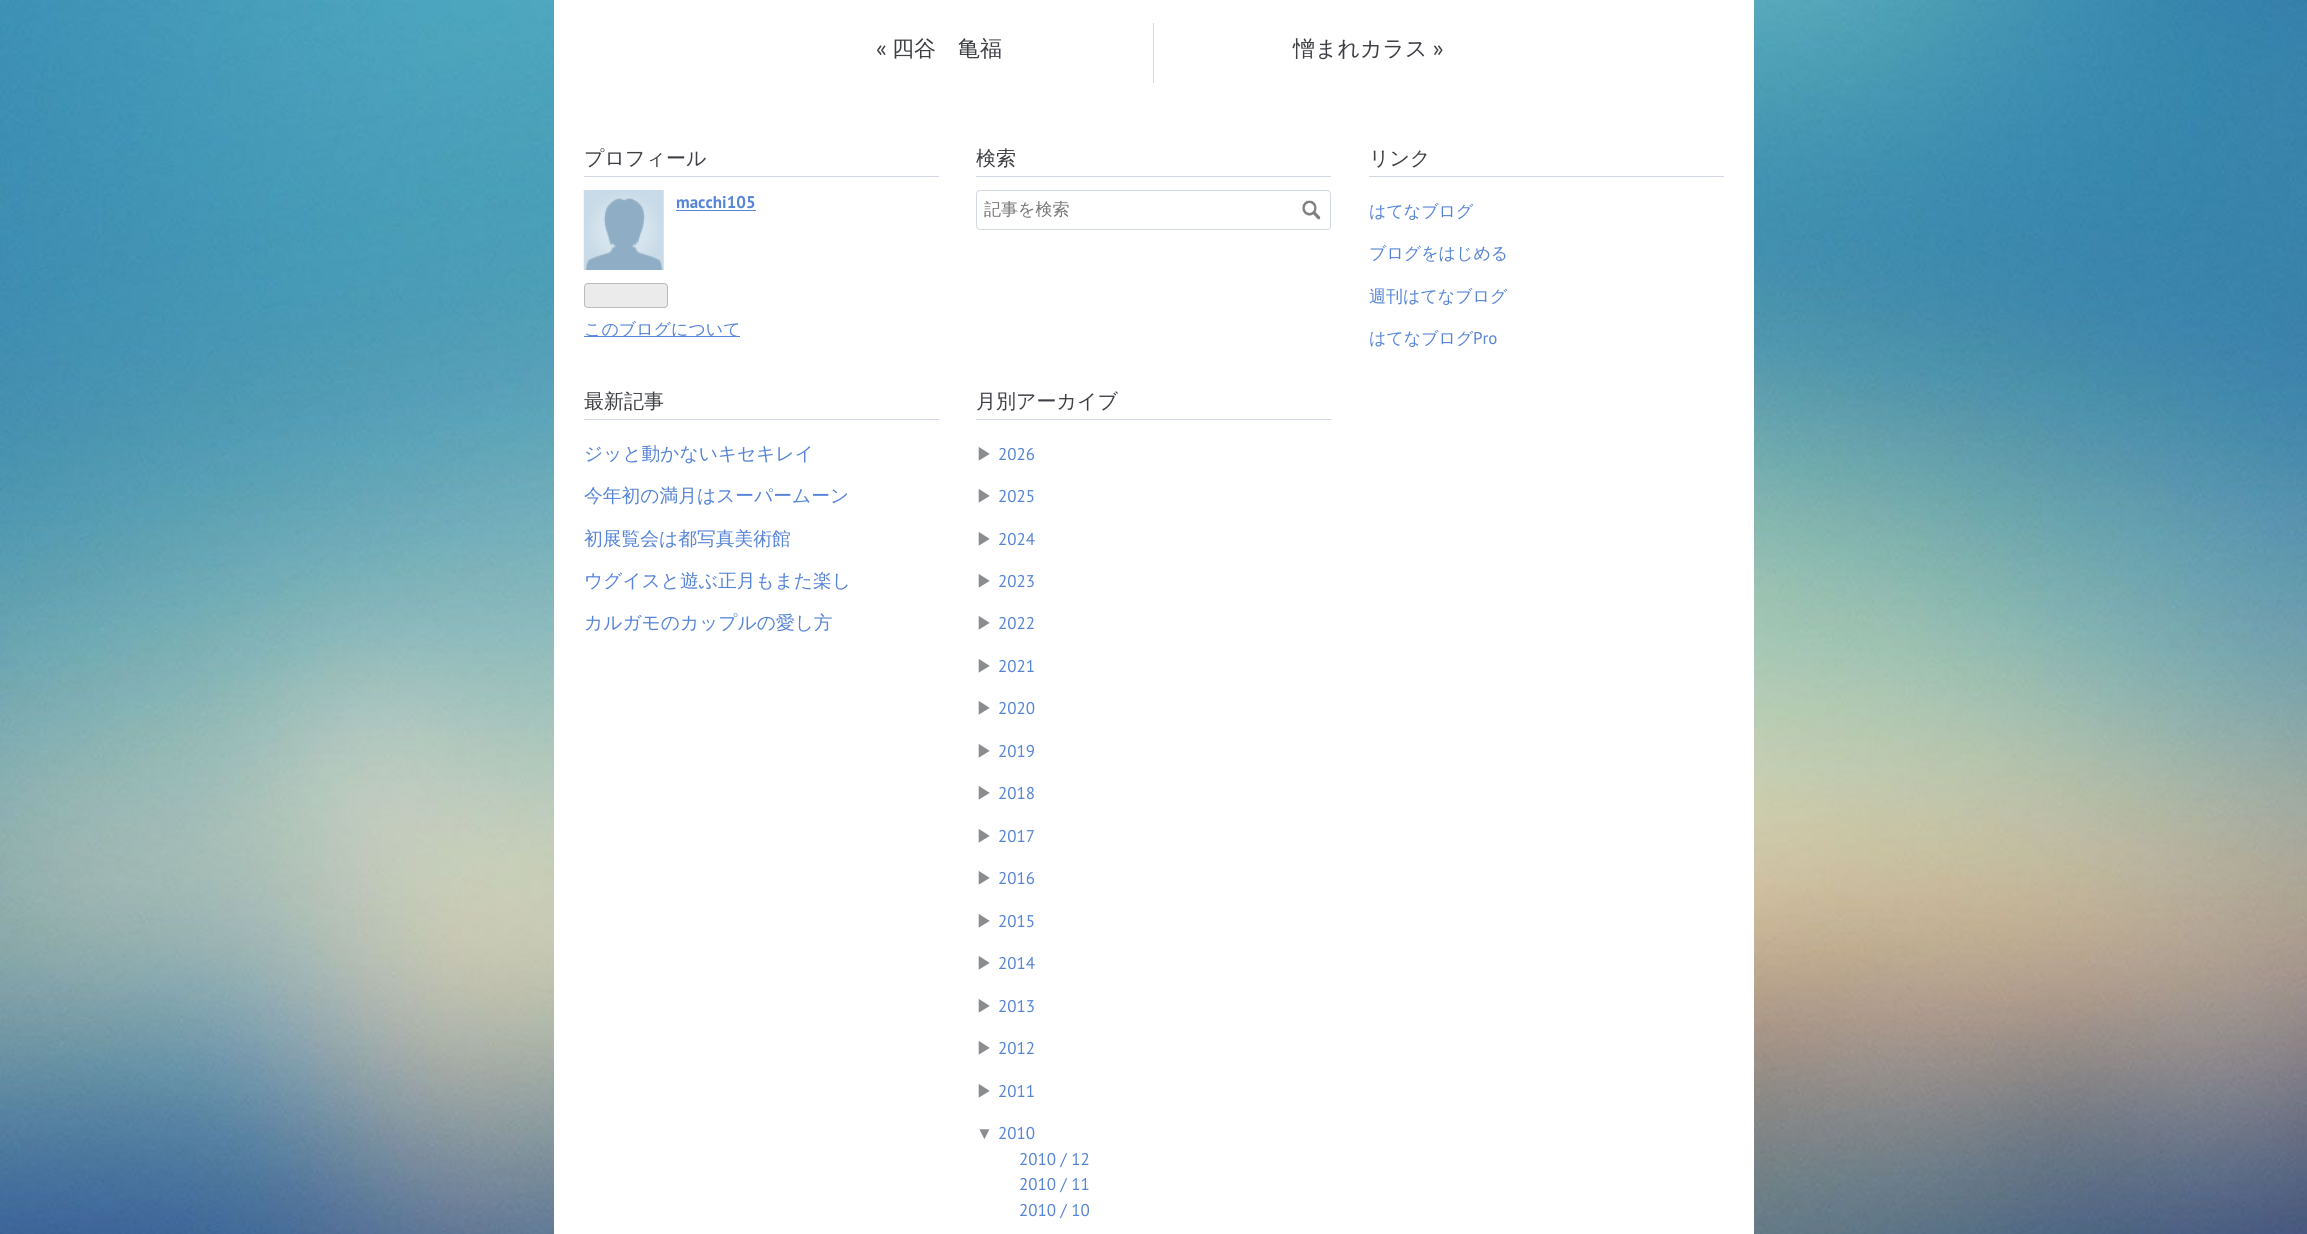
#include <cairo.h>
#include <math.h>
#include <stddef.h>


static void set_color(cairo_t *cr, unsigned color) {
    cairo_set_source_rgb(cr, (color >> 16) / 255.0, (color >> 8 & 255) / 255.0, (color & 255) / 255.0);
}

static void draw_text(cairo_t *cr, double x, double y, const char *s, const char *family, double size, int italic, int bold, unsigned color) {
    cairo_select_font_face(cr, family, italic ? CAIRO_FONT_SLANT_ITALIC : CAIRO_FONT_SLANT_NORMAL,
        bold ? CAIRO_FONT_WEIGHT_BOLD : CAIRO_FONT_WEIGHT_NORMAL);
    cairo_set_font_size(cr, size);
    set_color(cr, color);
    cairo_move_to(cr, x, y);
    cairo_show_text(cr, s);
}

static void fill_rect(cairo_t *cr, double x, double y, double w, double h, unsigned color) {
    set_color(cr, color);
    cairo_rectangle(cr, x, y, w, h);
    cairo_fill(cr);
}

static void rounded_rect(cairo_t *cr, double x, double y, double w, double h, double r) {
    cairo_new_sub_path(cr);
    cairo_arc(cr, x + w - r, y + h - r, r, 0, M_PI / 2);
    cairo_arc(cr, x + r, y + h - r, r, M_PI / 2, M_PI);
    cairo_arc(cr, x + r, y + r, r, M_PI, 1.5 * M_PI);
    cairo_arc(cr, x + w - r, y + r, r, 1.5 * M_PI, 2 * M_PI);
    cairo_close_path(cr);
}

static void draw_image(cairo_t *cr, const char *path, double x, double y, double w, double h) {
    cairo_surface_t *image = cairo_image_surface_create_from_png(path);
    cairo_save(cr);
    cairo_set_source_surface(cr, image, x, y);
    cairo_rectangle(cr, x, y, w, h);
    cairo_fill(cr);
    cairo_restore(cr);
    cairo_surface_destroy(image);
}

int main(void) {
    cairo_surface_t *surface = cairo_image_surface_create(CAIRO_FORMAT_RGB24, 2307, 1234);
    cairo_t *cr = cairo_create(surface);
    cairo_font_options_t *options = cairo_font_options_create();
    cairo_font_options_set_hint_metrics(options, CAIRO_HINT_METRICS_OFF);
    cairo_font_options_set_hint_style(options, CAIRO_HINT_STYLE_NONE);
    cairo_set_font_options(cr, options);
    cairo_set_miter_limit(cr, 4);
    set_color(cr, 0xFFFFFF);
    cairo_paint(cr);
    draw_image(cr, "assets/img1.png", 0, 0, 2307, 1234);
    fill_rect(cr, 554, 0, 1200, 1234, 0xFFFFFF);
    draw_text(cr, 876, 56, "«", "PT Sans", 22, 0, 0, 0x3D3F44);
    draw_text(cr, 892, 56, "四谷　亀福", "WenQuanYi Zen Hei Medium", 22, 0, 0, 0x3D3F44);
    fill_rect(cr, 1153, 23, 1, 60, 0xD2D7E5);
    draw_text(cr, 1293, 56, "憎まれカラス", "WenQuanYi Zen Hei Medium", 22, 0, 0, 0x3D3F44);
    draw_text(cr, 1433, 56, "»", "PT Sans", 22, 0, 0, 0x3D3F44);
    fill_rect(cr, 584, 176, 355, 1, 0xD2D7E5);
    draw_text(cr, 584, 165, "プロフィール", "WenQuanYi Zen Hei Medium", 20, 0, 0, 0x3D3F44);
    draw_image(cr, "assets/img2.png", 583, 190, 81, 80);
    draw_text(cr, 676, 208, "macchi105", "PT Sans", 17, 0, 1, 0x5684D7);
    fill_rect(cr, 676, 210, 80, 1, 0x5684D7);
    set_color(cr, 0xEBEBEB);
    rounded_rect(cr, 584.5, 283.5, 83, 24, 3.5);
    cairo_fill_preserve(cr);
    set_color(cr, 0xBBBBBB);
    cairo_set_line_width(cr, 1);
    cairo_stroke(cr);
    fill_rect(cr, 584, 336, 156, 1, 0x5684D7);
    draw_text(cr, 584, 335, "このブログについて", "WenQuanYi Zen Hei Medium", 17, 0, 0, 0x5684D7);
    fill_rect(cr, 976, 176, 355, 1, 0xD2D7E5);
    draw_text(cr, 976, 165, "検索", "WenQuanYi Zen Hei Medium", 20, 0, 0, 0x3D3F44);
    rounded_rect(cr, 976.5, 190.5, 354, 39, 3.5);
    set_color(cr, 0xD2D7E5);
    cairo_stroke(cr);
    draw_text(cr, 984, 215, "記事を検索", "WenQuanYi Zen Hei Medium", 17, 0, 0, 0x757575);
    draw_image(cr, "assets/img3.png", 1302, 200, 19, 20);
    fill_rect(cr, 1369, 176, 355, 1, 0xD2D7E5);
    draw_text(cr, 1369, 165, "リンク", "WenQuanYi Zen Hei Medium", 20, 0, 0, 0x3D3F44);
    draw_text(cr, 1369, 217, "はてなブログ", "WenQuanYi Zen Hei Medium", 17, 0, 0, 0x5684D7);
    draw_text(cr, 1369, 259, "ブログをはじめる", "WenQuanYi Zen Hei Medium", 17, 0, 0, 0x5684D7);
    draw_text(cr, 1369, 302, "週刊はてなブログ", "WenQuanYi Zen Hei Medium", 17, 0, 0, 0x5684D7);
    draw_text(cr, 1369, 344, "はてなブログ", "WenQuanYi Zen Hei Medium", 17, 0, 0, 0x5684D7);
    draw_text(cr, 1473, 344, "Pro", "PT Sans", 17, 0, 0, 0x5684D7);
    fill_rect(cr, 584, 419, 355, 1, 0xD2D7E5);
    draw_text(cr, 584, 408, "最新記事", "WenQuanYi Zen Hei Medium", 20, 0, 0, 0x3D3F44);
    draw_text(cr, 584, 460, "ジッと動かないキセキレイ", "WenQuanYi Zen Hei Medium", 18.75, 0, 0, 0x5684D7);
    draw_text(cr, 584, 502, "今年初の満月はスーパームーン", "WenQuanYi Zen Hei Medium", 18.75, 0, 0, 0x5684D7);
    draw_text(cr, 584, 545, "初展覧会は都写真美術館", "WenQuanYi Zen Hei Medium", 18.75, 0, 0, 0x5684D7);
    draw_text(cr, 584, 587, "ウグイスと遊ぶ正月もまた楽し", "WenQuanYi Zen Hei Medium", 18.75, 0, 0, 0x5684D7);
    draw_text(cr, 584, 629, "カルガモのカップルの愛し方", "WenQuanYi Zen Hei Medium", 18.75, 0, 0, 0x5684D7);
    fill_rect(cr, 976, 419, 355, 1, 0xD2D7E5);
    draw_text(cr, 976, 408, "月別アーカイブ", "WenQuanYi Zen Hei Medium", 20, 0, 0, 0x3D3F44);
    draw_text(cr, 976, 460, "▶", "WenQuanYi Zen Hei Medium", 17, 0, 0, 0x8B8C8F);
    draw_text(cr, 998, 460, "2026", "PT Sans", 17, 0, 0, 0x5684D7);
    draw_text(cr, 976, 502, "▶", "WenQuanYi Zen Hei Medium", 17, 0, 0, 0x8B8C8F);
    draw_text(cr, 998, 502, "2025", "PT Sans", 17, 0, 0, 0x5684D7);
    draw_text(cr, 976, 545, "▶", "WenQuanYi Zen Hei Medium", 17, 0, 0, 0x8B8C8F);
    draw_text(cr, 998, 545, "2024", "PT Sans", 17, 0, 0, 0x5684D7);
    draw_text(cr, 976, 587, "▶", "WenQuanYi Zen Hei Medium", 17, 0, 0, 0x8B8C8F);
    draw_text(cr, 998, 587, "2023", "PT Sans", 17, 0, 0, 0x5684D7);
    draw_text(cr, 976, 629, "▶", "WenQuanYi Zen Hei Medium", 17, 0, 0, 0x8B8C8F);
    draw_text(cr, 998, 629, "2022", "PT Sans", 17, 0, 0, 0x5684D7);
    draw_text(cr, 976, 672, "▶", "WenQuanYi Zen Hei Medium", 17, 0, 0, 0x8B8C8F);
    draw_text(cr, 998, 672, "2021", "PT Sans", 17, 0, 0, 0x5684D7);
    draw_text(cr, 976, 714, "▶", "WenQuanYi Zen Hei Medium", 17, 0, 0, 0x8B8C8F);
    draw_text(cr, 998, 714, "2020", "PT Sans", 17, 0, 0, 0x5684D7);
    draw_text(cr, 976, 757, "▶", "WenQuanYi Zen Hei Medium", 17, 0, 0, 0x8B8C8F);
    draw_text(cr, 998, 757, "2019", "PT Sans", 17, 0, 0, 0x5684D7);
    draw_text(cr, 976, 799, "▶", "WenQuanYi Zen Hei Medium", 17, 0, 0, 0x8B8C8F);
    draw_text(cr, 998, 799, "2018", "PT Sans", 17, 0, 0, 0x5684D7);
    draw_text(cr, 976, 842, "▶", "WenQuanYi Zen Hei Medium", 17, 0, 0, 0x8B8C8F);
    draw_text(cr, 998, 842, "2017", "PT Sans", 17, 0, 0, 0x5684D7);
    draw_text(cr, 976, 884, "▶", "WenQuanYi Zen Hei Medium", 17, 0, 0, 0x8B8C8F);
    draw_text(cr, 998, 884, "2016", "PT Sans", 17, 0, 0, 0x5684D7);
    draw_text(cr, 976, 927, "▶", "WenQuanYi Zen Hei Medium", 17, 0, 0, 0x8B8C8F);
    draw_text(cr, 998, 927, "2015", "PT Sans", 17, 0, 0, 0x5684D7);
    draw_text(cr, 976, 969, "▶", "WenQuanYi Zen Hei Medium", 17, 0, 0, 0x8B8C8F);
    draw_text(cr, 998, 969, "2014", "PT Sans", 17, 0, 0, 0x5684D7);
    draw_text(cr, 976, 1012, "▶", "WenQuanYi Zen Hei Medium", 17, 0, 0, 0x8B8C8F);
    draw_text(cr, 998, 1012, "2013", "PT Sans", 17, 0, 0, 0x5684D7);
    draw_text(cr, 976, 1054, "▶", "WenQuanYi Zen Hei Medium", 17, 0, 0, 0x8B8C8F);
    draw_text(cr, 998, 1054, "2012", "PT Sans", 17, 0, 0, 0x5684D7);
    draw_text(cr, 976, 1097, "▶", "WenQuanYi Zen Hei Medium", 17, 0, 0, 0x8B8C8F);
    draw_text(cr, 998, 1097, "2011", "PT Sans", 17, 0, 0, 0x5684D7);
    draw_text(cr, 976, 1139, "▼", "Liberation Sans", 17, 0, 0, 0x8B8C8F);
    draw_text(cr, 998, 1139, "2010", "PT Sans", 17, 0, 0, 0x5684D7);
    draw_text(cr, 1019, 1165, "2010 / 12", "PT Sans", 17, 0, 0, 0x5684D7);
    draw_text(cr, 1019, 1190, "2010 / 11", "PT Sans", 17, 0, 0, 0x5684D7);
    draw_text(cr, 1019, 1216, "2010 / 10", "PT Sans", 17, 0, 0, 0x5684D7);
    cairo_surface_write_to_png(surface, "output.png");
    cairo_font_options_destroy(options);
    cairo_destroy(cr);
    cairo_surface_destroy(surface);
    return 0;
}
